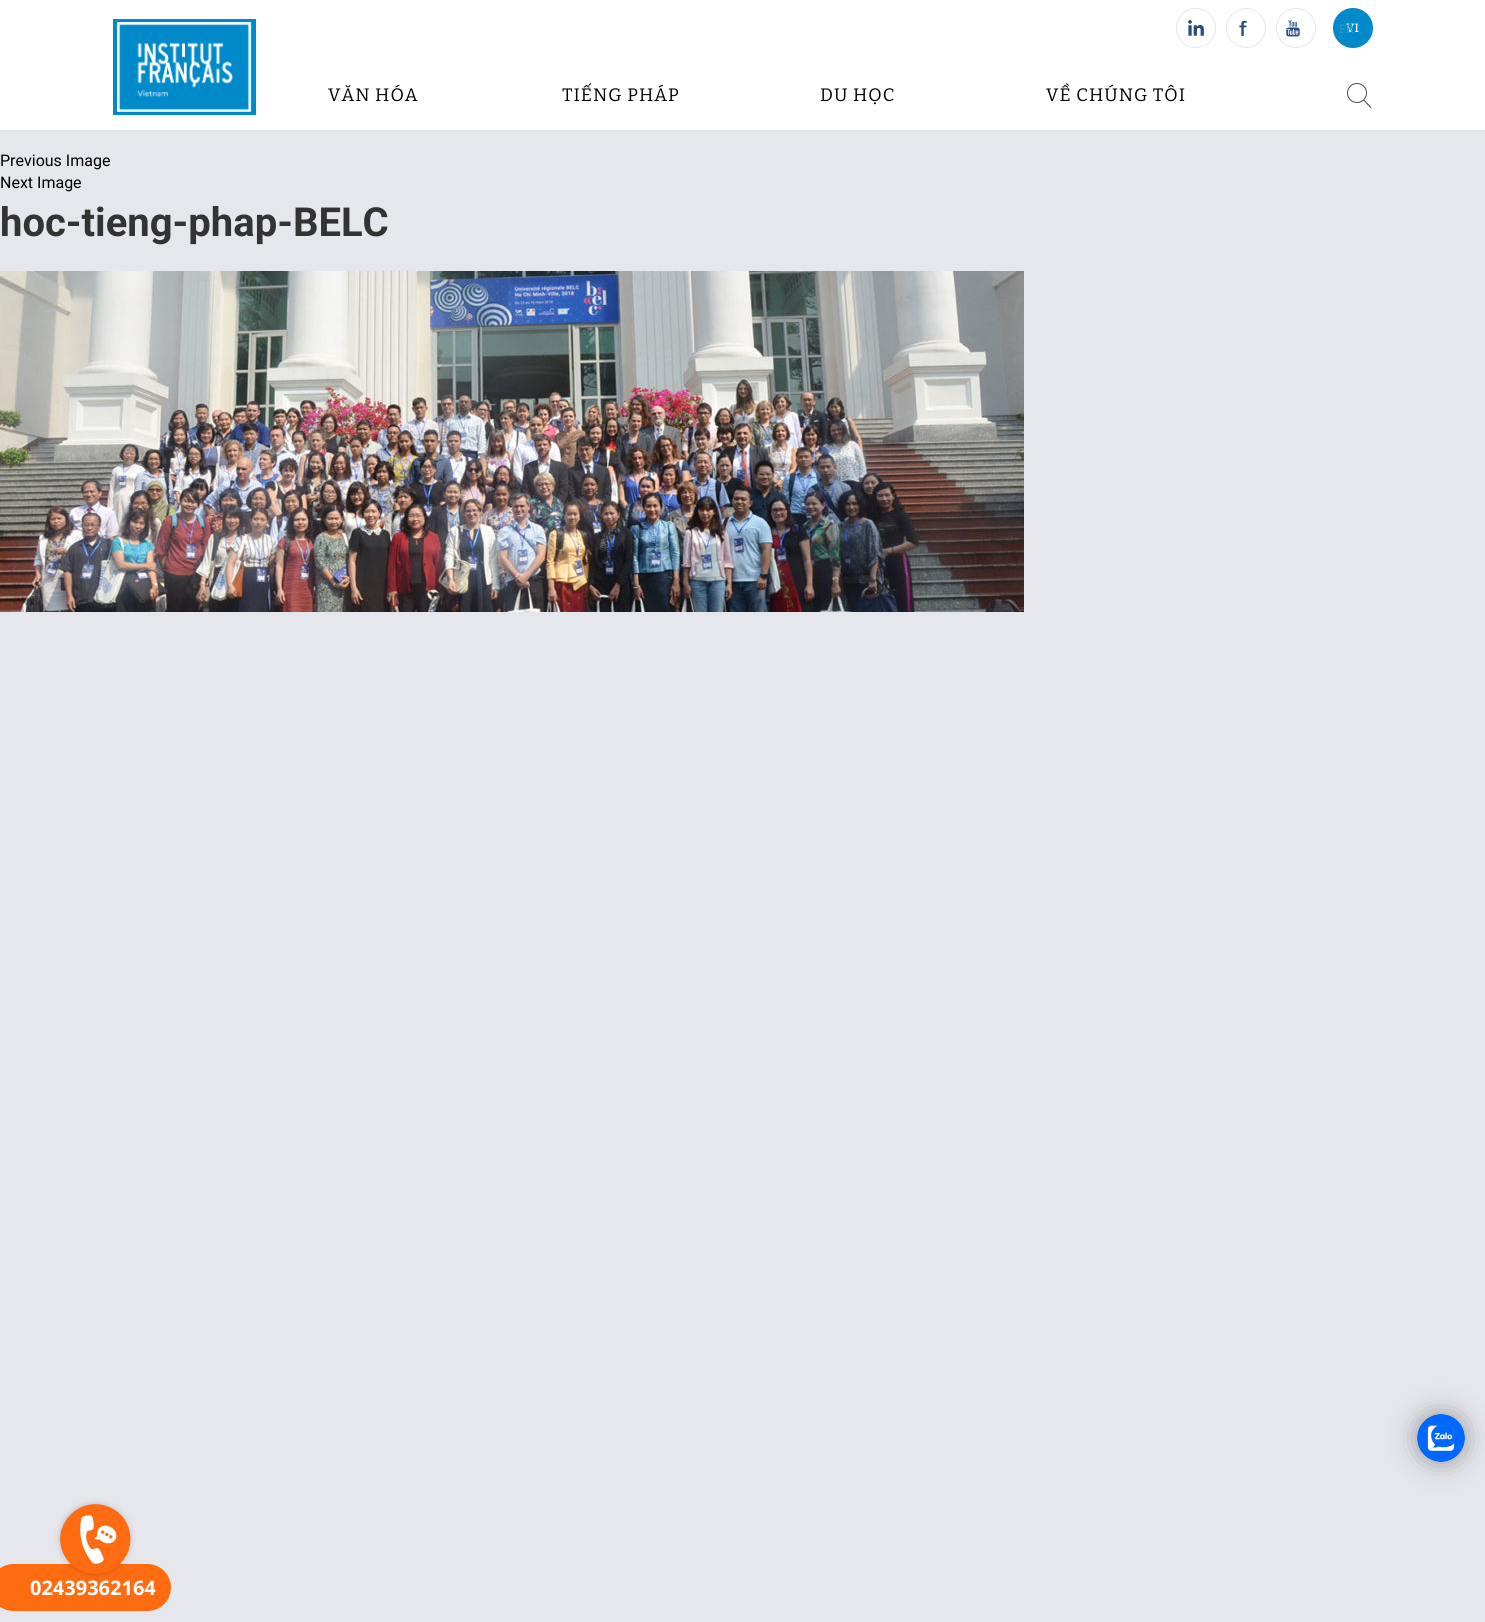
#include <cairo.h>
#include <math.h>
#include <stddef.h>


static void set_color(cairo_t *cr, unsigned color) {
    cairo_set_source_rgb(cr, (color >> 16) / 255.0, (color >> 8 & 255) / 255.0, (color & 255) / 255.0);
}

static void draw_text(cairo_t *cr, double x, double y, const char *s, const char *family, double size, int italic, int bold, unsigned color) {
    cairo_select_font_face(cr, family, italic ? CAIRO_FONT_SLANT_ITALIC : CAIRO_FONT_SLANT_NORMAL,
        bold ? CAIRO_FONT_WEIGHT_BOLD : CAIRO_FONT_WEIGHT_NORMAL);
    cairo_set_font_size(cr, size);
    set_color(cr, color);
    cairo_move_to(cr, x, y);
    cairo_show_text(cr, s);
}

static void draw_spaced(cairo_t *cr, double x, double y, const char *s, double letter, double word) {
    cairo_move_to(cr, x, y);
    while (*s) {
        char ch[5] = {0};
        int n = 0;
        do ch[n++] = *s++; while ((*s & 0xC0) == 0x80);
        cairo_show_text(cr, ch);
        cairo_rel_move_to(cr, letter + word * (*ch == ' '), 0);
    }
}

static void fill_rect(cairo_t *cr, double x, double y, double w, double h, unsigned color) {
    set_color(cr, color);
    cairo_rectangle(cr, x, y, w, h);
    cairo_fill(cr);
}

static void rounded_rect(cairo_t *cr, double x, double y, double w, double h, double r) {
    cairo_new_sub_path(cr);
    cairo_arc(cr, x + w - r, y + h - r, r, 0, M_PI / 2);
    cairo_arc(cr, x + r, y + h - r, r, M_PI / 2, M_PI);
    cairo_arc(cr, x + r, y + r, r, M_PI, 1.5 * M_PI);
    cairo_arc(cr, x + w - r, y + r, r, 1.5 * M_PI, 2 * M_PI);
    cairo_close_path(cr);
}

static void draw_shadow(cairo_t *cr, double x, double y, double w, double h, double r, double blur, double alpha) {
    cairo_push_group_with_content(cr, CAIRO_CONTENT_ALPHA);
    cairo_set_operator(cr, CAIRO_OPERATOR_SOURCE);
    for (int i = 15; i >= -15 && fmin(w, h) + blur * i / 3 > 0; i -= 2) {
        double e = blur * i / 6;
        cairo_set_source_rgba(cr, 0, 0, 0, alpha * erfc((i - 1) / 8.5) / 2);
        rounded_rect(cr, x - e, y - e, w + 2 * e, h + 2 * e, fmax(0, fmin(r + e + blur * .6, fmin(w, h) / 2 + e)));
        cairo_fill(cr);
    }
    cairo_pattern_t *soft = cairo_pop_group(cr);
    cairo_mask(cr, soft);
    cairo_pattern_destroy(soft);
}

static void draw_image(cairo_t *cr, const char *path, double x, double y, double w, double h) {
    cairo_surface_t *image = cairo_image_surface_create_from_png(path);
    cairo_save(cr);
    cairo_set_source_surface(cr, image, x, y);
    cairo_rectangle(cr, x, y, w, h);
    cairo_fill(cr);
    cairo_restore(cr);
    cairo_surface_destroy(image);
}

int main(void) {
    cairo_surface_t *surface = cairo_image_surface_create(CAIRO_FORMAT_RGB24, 1485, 1622);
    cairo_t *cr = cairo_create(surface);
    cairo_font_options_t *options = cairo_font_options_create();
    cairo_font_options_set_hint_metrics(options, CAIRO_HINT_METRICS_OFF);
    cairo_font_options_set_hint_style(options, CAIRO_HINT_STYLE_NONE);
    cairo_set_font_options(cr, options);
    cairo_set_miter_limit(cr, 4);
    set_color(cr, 0xE5E7ED);
    cairo_paint(cr);
    fill_rect(cr, 0, 0, 1485, 130, 0xFFFFFF);
    fill_rect(cr, 113, 19, 143, 96, 0x008AC9);
    draw_image(cr, "assets/img1.png", 117, 22, 135, 90);
    cairo_arc(cr, 1196, 28, 19.5, 0, 2 * M_PI);
    set_color(cr, 0xE5E7ED);
    cairo_set_line_width(cr, 1);
    cairo_stroke(cr);
    draw_image(cr, "assets/img2.png", 1188, 20, 16, 16);
    cairo_arc(cr, 1246, 28, 19.5, 0, 2 * M_PI);
    cairo_stroke(cr);
    draw_image(cr, "assets/img3.png", 1239, 20, 8, 16);
    cairo_arc(cr, 1296, 28, 19.5, 0, 2 * M_PI);
    cairo_stroke(cr);
    draw_image(cr, "assets/img4.png", 1286, 20, 14, 17);
    set_color(cr, 0x008AC9);
    cairo_arc(cr, 1353, 28, 20, 0, 2 * M_PI);
    cairo_fill(cr);
    draw_text(cr, 1346, 32, "VI", "Bitter Medium", 12, 0, 0, 0xFFFFFF);
    draw_text(cr, 1339, 33, "FR", "Bitter Medium", 12, 0, 0, 0x2A9DD2);
    cairo_select_font_face(cr, "Bitter", CAIRO_FONT_SLANT_NORMAL, CAIRO_FONT_WEIGHT_NORMAL);
    cairo_set_font_size(cr, 18);
    set_color(cr, 0x000000);
    draw_spaced(cr, 328, 101, "VĂN HÓA", 1, 0);
    draw_spaced(cr, 562, 101, "TIẾNG PHÁP", 1, 0);
    draw_spaced(cr, 820, 101, "DU HỌC", 1, 0);
    draw_spaced(cr, 1046, 101, "VỀ CHÚNG TÔI", 1, 0);
    cairo_new_path(cr);
    cairo_arc(cr, 1357, 93, 9.5, 0, 2 * M_PI);
    set_color(cr, 0x4B4B4B);
    cairo_stroke(cr);
    cairo_new_path(cr);
    cairo_move_to(cr, 1363.5, 100.5);
    cairo_line_to(cr, 1364.5, 100);
    cairo_line_to(cr, 1371.5, 107.5);
    cairo_line_to(cr, 1370.5, 108);
    cairo_close_path(cr);
    cairo_fill(cr);
    draw_text(cr, 0, 166, "Previous Image", "Roboto", 16, 0, 0, 0x000000);
    draw_text(cr, 0, 188, "Next Image", "Roboto", 16, 0, 0, 0x000000);
    draw_text(cr, 0, 236, "hoc-tieng-phap-BELC", "Roboto", 40, 0, 1, 0x333333);
    draw_image(cr, "assets/img5.png", 0, 271, 1024, 341);
    set_color(cr, 0x999999);
    draw_shadow(cr, 1417, 1414, 48, 48, 24, 12.5, 1);
    draw_image(cr, "assets/img6.png", 1417, 1414, 48, 48);
    set_color(cr, 0xFF6B11);
    rounded_rect(cr, -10, 1564, 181, 47, 23.5);
    cairo_fill(cr);
    set_color(cr, 0x000000);
    draw_shadow(cr, 60, 1504, 70, 70, 35, 3, 0.2);
    set_color(cr, 0xFF6B11);
    cairo_new_path(cr);
    cairo_move_to(cr, 113, 1509);
    cairo_curve_to(cr, 130, 1518, 135, 1540, 126, 1556);
    cairo_curve_to(cr, 116, 1573, 95, 1579, 78, 1569);
    cairo_curve_to(cr, 61, 1560, 55, 1538, 65, 1522);
    cairo_curve_to(cr, 75, 1505, 96, 1499, 113, 1509);
    cairo_close_path(cr);
    cairo_fill(cr);
    draw_image(cr, "assets/img7.png", 80, 1515, 37, 49);
    draw_text(cr, 30, 1595, "02439362164", "Open Sans", 20, 0, 1, 0xFFFFFF);
    cairo_surface_write_to_png(surface, "output.png");
    cairo_font_options_destroy(options);
    cairo_destroy(cr);
    cairo_surface_destroy(surface);
    return 0;
}
